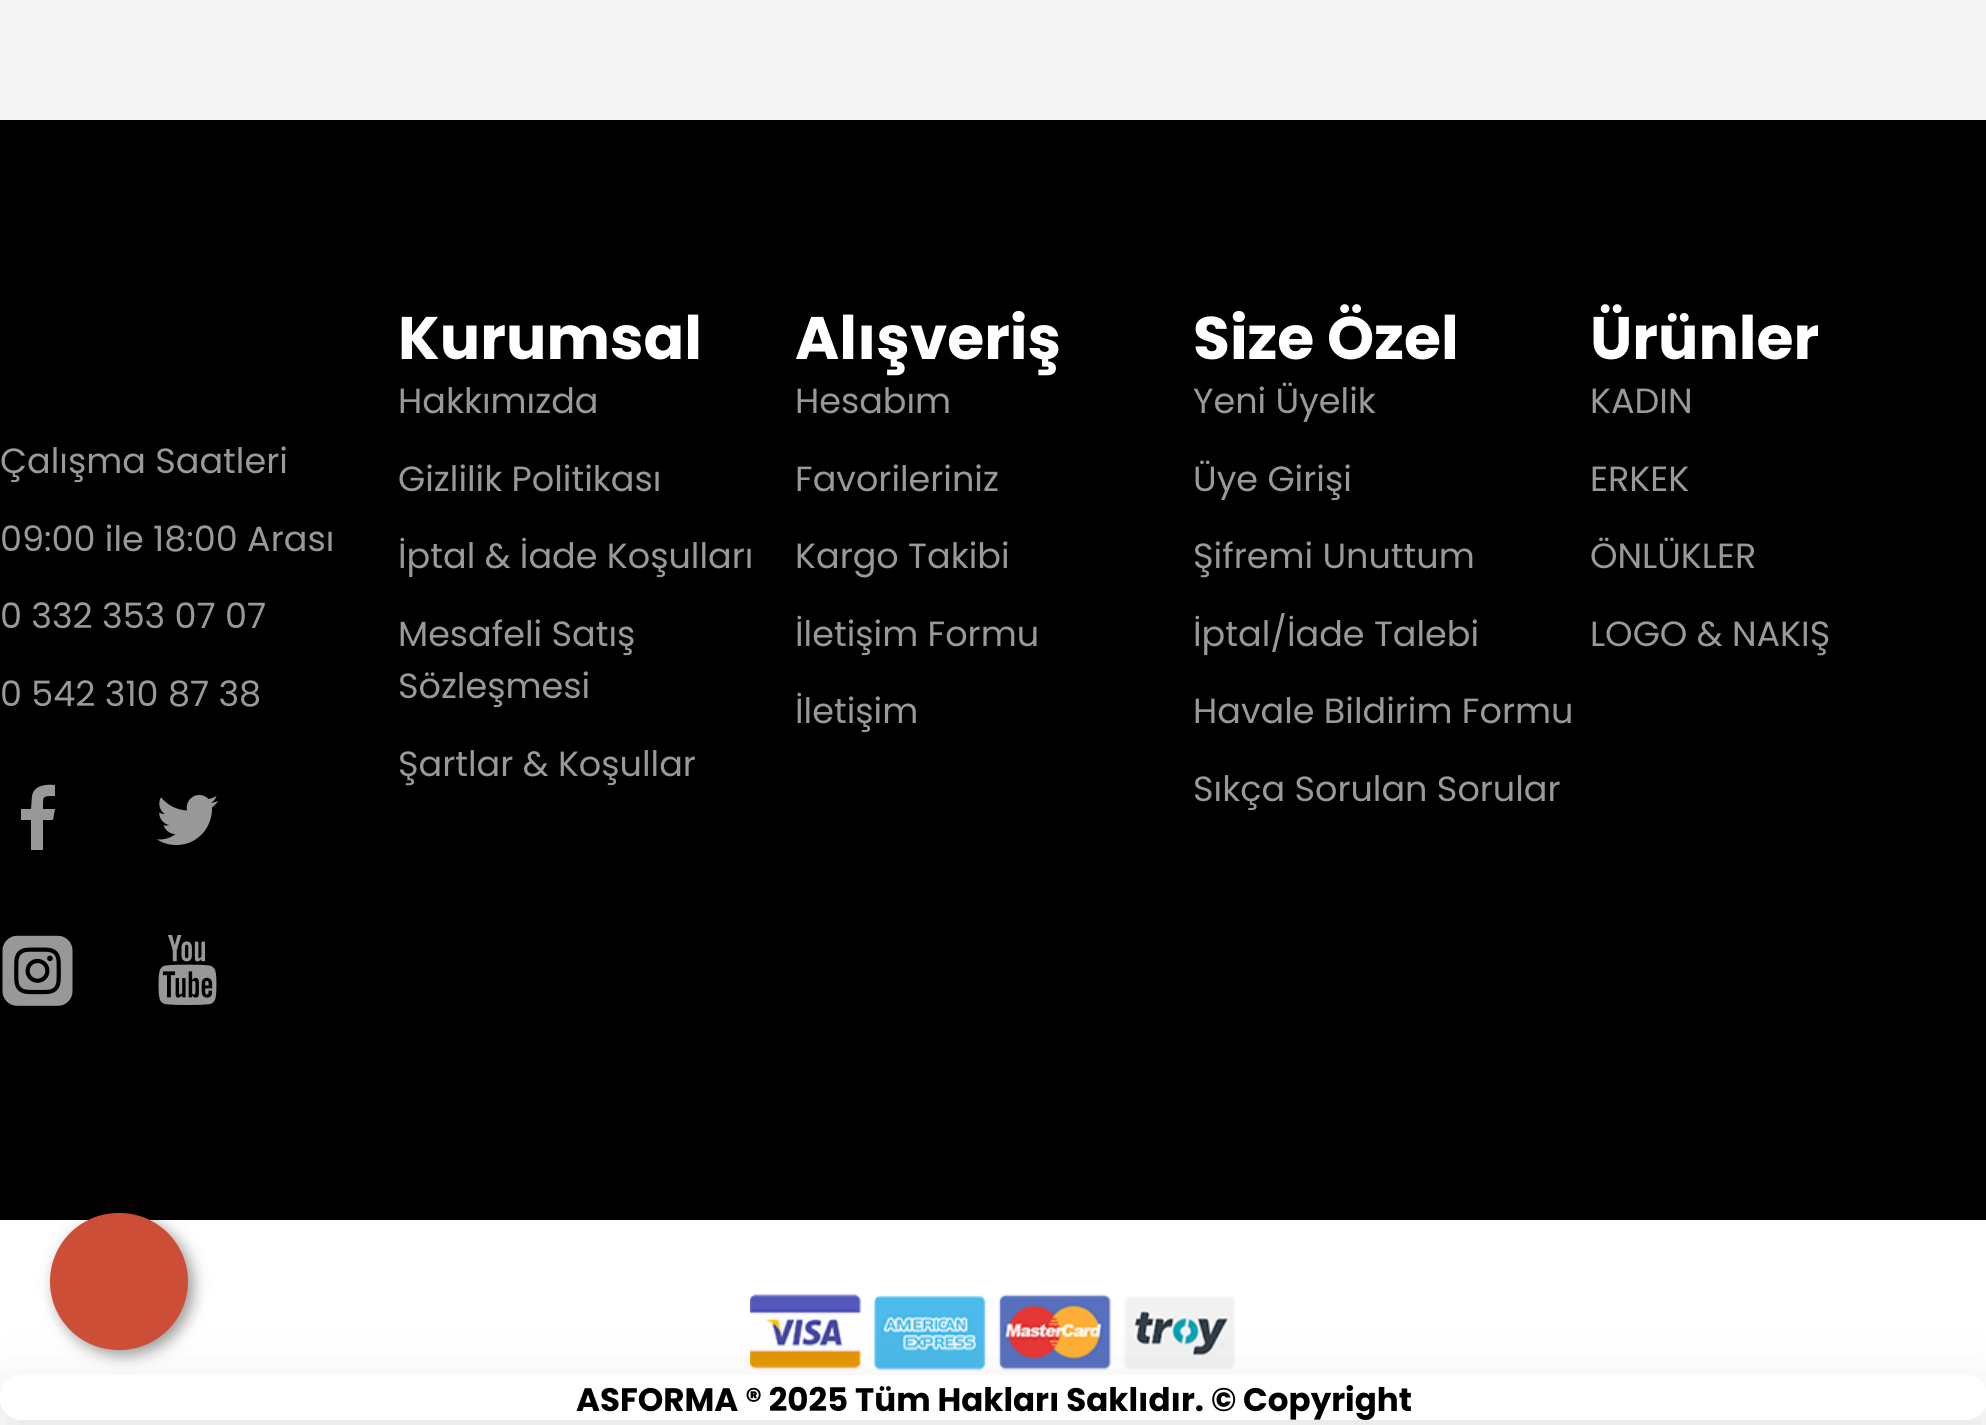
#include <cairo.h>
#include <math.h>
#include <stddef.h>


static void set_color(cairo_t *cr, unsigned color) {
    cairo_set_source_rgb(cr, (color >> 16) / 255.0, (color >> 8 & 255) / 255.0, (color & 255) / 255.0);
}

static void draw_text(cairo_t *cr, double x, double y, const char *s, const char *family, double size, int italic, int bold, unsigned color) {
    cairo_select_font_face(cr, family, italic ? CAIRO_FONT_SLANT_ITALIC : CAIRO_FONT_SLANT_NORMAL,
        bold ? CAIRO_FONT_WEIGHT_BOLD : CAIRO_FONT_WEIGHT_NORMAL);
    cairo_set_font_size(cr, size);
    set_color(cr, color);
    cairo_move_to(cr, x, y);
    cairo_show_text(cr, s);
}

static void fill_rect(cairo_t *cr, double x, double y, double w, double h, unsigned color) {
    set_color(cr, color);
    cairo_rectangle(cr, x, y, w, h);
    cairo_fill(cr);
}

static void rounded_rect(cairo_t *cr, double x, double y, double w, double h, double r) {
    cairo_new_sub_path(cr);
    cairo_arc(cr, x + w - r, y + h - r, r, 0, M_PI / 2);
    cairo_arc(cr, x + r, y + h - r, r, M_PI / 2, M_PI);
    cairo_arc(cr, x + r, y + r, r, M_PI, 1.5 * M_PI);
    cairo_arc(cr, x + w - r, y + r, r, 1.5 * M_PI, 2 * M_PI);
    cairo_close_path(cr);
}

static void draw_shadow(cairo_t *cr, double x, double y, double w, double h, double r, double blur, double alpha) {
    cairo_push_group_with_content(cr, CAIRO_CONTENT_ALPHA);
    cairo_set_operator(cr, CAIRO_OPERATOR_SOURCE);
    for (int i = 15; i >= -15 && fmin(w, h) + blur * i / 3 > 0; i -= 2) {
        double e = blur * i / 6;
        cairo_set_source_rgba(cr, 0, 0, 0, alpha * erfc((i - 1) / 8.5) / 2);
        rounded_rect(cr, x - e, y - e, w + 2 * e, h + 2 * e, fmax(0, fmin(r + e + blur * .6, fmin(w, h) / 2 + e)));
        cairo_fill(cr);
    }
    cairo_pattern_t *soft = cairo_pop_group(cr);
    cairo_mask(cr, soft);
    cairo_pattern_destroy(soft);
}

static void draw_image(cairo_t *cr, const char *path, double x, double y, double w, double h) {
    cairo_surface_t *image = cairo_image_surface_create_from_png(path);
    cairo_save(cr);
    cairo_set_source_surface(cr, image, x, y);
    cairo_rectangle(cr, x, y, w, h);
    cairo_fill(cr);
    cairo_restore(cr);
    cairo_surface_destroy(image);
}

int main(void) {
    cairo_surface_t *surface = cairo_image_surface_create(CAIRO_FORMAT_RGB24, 1986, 1425);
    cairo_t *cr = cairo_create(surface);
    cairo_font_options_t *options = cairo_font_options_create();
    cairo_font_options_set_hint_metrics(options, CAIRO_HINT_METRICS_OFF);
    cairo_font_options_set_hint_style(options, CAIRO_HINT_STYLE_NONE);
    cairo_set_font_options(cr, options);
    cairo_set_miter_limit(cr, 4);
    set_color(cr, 0xFFFFFF);
    cairo_paint(cr);
    fill_rect(cr, 0, 0, 1986, 120, 0xF5F5F5);
    fill_rect(cr, 0, 120, 1986, 1100, 0x000000);
    draw_text(cr, 0, 473, "Çalışma Saatleri", "Poppins", 35, 0, 0, 0x999999);
    draw_text(cr, 0, 551, "09:00 ile 18:00 Arası", "Poppins", 35, 0, 0, 0x999999);
    draw_text(cr, 0, 628, "0 332 353 07 07", "Poppins", 35, 0, 0, 0x999999);
    draw_text(cr, 0, 706, "0 542 310 87 38", "Poppins", 35, 0, 0, 0x999999);
    set_color(cr, 0x989898);
    cairo_new_path(cr);
    cairo_move_to(cr, 55, 785);
    cairo_line_to(cr, 55, 796);
    cairo_curve_to(cr, 42, 796, 43, 796, 43, 809);
    cairo_line_to(cr, 55, 809);
    cairo_line_to(cr, 53, 820);
    cairo_line_to(cr, 43, 820);
    cairo_line_to(cr, 43, 850);
    cairo_line_to(cr, 31, 850);
    cairo_line_to(cr, 31, 820);
    cairo_line_to(cr, 21, 820);
    cairo_line_to(cr, 21, 809);
    cairo_line_to(cr, 31, 809);
    cairo_line_to(cr, 32, 796);
    cairo_curve_to(cr, 34, 785, 46, 784, 55, 785);
    cairo_close_path(cr);
    cairo_fill(cr);
    draw_image(cr, "assets/img1.png", 157, 795, 62, 50);
    draw_image(cr, "assets/img2.png", 2, 935, 71, 71);
    draw_image(cr, "assets/img3.png", 158, 935, 59, 70);
    draw_text(cr, 398, 359, "Kurumsal", "Poppins", 60, 0, 1, 0xFFFFFF);
    draw_text(cr, 398, 413, "Hakkımızda", "Poppins", 35, 0, 0, 0x999999);
    draw_text(cr, 398, 491, "Gizlilik Politikası", "Poppins", 35, 0, 0, 0x999999);
    draw_text(cr, 398, 568, "İptal & İade Koşulları", "Poppins", 35, 0, 0, 0x999999);
    draw_text(cr, 398, 646, "Mesafeli Satış", "Poppins", 35, 0, 0, 0x999999);
    draw_text(cr, 398, 698, "Sözleşmesi", "Poppins", 35, 0, 0, 0x999999);
    draw_text(cr, 398, 776, "Şartlar & Koşullar", "Poppins", 35, 0, 0, 0x999999);
    draw_text(cr, 795, 359, "Alışveriş", "Poppins", 60, 0, 1, 0xFFFFFF);
    draw_text(cr, 795, 413, "Hesabım", "Poppins", 35, 0, 0, 0x999999);
    draw_text(cr, 795, 491, "Favorileriniz", "Poppins", 35, 0, 0, 0x999999);
    draw_text(cr, 795, 568, "Kargo Takibi", "Poppins", 35, 0, 0, 0x999999);
    draw_text(cr, 795, 646, "İletişim Formu", "Poppins", 35, 0, 0, 0x999999);
    draw_text(cr, 795, 723, "İletişim", "Poppins", 35, 0, 0, 0x999999);
    draw_text(cr, 1193, 359, "Size Özel", "Poppins", 60, 0, 1, 0xFFFFFF);
    draw_text(cr, 1193, 413, "Yeni Üyelik", "Poppins", 35, 0, 0, 0x999999);
    draw_text(cr, 1193, 491, "Üye Girişi", "Poppins", 35, 0, 0, 0x999999);
    draw_text(cr, 1193, 568, "Şifremi Unuttum", "Poppins", 35, 0, 0, 0x999999);
    draw_text(cr, 1193, 646, "İptal/İade Talebi", "Poppins", 35, 0, 0, 0x999999);
    draw_text(cr, 1193, 723, "Havale Bildirim Formu", "Poppins", 35, 0, 0, 0x999999);
    draw_text(cr, 1193, 801, "Sıkça Sorulan Sorular", "Poppins", 35, 0, 0, 0x999999);
    draw_text(cr, 1590, 359, "Ürünler", "Poppins", 60, 0, 1, 0xFFFFFF);
    draw_text(cr, 1590, 413, "KADIN", "Poppins", 35, 0, 0, 0x999999);
    draw_text(cr, 1590, 491, "ERKEK", "Poppins", 35, 0, 0, 0x999999);
    draw_text(cr, 1590, 568, "ÖNLÜKLER", "Poppins", 35, 0, 0, 0x999999);
    draw_text(cr, 1590, 646, "LOGO & NAKIŞ", "Poppins", 35, 0, 0, 0x999999);
    draw_image(cr, "assets/img4.png", 750, 1294, 485, 77);
    cairo_save(cr);
    cairo_set_fill_rule(cr, CAIRO_FILL_RULE_EVEN_ODD);
    cairo_new_path(cr);
    cairo_move_to(cr, 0, 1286);
    cairo_line_to(cr, 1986, 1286);
    cairo_line_to(cr, 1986, 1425);
    cairo_line_to(cr, 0, 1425);
    cairo_close_path(cr);
    cairo_move_to(cr, 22.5, 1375);
    cairo_line_to(cr, 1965.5, 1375);
    cairo_curve_to(cr, 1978, 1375, 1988, 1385, 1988, 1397.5);
    cairo_curve_to(cr, 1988, 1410, 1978, 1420, 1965.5, 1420);
    cairo_line_to(cr, 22.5, 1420);
    cairo_curve_to(cr, 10, 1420, 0, 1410, 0, 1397.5);
    cairo_curve_to(cr, 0, 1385, 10, 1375, 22.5, 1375);
    cairo_close_path(cr);
    cairo_clip(cr);
    set_color(cr, 0x000000);
    draw_shadow(cr, 0, 1400, 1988, 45, 22.5, 37.5, 0.1);
    cairo_restore(cr);
    draw_text(cr, 576, 1411, "ASFORMA ® 2025 Tüm Hakları Saklıdır. © Copyright", "Poppins", 32.5, 0, 1, 0x000000);
    set_color(cr, 0x000000);
    draw_shadow(cr, 55, 1218, 138, 137, 68.5, 7.5, 0.4);
    set_color(cr, 0xCD4E37);
    rounded_rect(cr, 50, 1213, 138, 137, 68.5);
    cairo_fill(cr);
    cairo_surface_write_to_png(surface, "output.png");
    cairo_font_options_destroy(options);
    cairo_destroy(cr);
    cairo_surface_destroy(surface);
    return 0;
}
